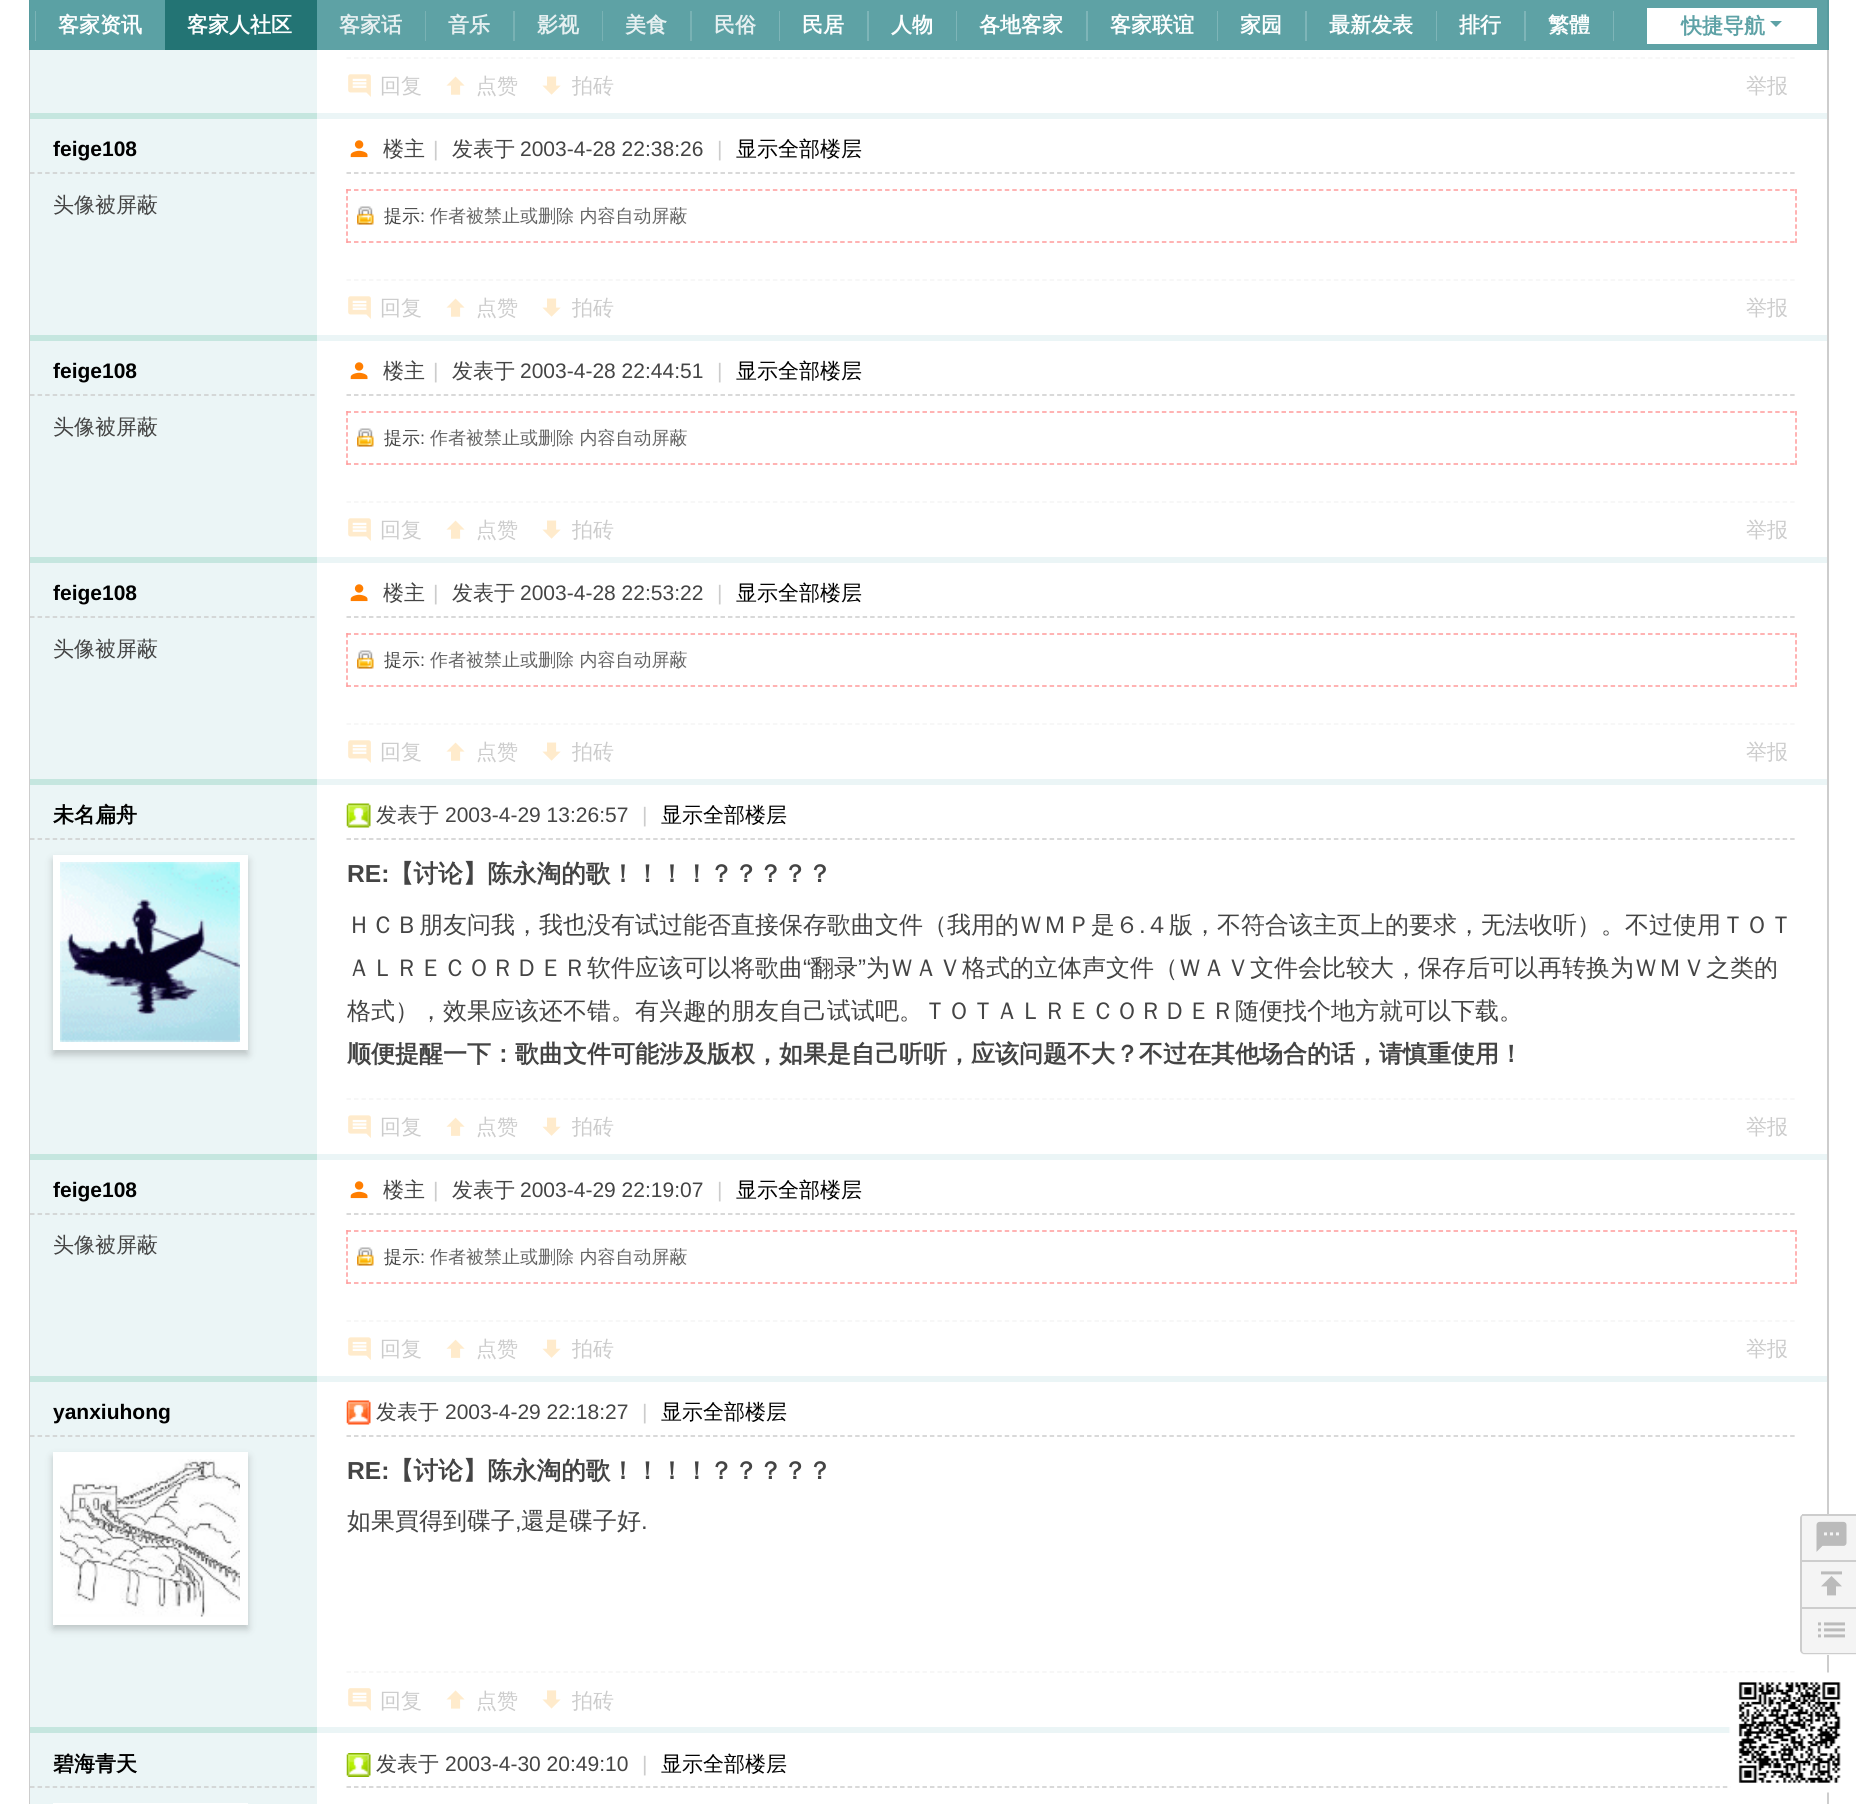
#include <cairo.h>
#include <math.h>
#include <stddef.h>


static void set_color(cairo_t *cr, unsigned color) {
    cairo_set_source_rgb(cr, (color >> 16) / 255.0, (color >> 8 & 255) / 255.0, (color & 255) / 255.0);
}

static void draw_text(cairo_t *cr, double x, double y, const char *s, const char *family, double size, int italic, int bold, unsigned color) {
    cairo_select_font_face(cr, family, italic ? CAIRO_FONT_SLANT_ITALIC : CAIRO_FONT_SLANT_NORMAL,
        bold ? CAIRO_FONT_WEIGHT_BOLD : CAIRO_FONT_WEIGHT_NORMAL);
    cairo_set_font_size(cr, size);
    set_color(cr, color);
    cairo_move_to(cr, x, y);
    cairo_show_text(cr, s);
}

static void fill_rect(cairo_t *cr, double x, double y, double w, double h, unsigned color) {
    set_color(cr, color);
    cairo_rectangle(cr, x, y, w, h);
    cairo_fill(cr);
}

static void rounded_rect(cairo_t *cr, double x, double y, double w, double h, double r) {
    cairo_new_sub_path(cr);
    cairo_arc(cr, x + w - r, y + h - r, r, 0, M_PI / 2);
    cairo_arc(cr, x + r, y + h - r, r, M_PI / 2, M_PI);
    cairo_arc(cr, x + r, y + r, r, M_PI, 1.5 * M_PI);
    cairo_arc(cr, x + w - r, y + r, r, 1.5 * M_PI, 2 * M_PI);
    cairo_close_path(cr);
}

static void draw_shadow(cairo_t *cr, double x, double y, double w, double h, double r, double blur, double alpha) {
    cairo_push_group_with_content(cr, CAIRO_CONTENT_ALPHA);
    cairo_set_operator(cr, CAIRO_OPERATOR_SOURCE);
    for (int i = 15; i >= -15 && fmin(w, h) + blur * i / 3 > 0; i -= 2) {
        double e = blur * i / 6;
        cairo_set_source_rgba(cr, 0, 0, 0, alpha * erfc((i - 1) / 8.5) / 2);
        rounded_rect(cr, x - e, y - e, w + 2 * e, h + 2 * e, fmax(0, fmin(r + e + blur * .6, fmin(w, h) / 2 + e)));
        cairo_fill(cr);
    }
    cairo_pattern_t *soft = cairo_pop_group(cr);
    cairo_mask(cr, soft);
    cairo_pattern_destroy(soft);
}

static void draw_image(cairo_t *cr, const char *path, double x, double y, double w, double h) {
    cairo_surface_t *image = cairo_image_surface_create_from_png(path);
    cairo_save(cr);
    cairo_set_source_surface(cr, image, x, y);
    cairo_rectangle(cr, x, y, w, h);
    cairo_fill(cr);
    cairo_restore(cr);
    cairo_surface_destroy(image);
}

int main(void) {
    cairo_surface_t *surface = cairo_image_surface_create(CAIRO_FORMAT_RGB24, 1856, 1804);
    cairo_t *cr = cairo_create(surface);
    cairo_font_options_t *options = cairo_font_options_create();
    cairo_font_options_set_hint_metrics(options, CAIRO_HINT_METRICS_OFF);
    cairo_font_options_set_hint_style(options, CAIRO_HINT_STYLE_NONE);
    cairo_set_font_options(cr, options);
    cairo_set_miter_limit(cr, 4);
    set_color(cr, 0xFFFFFF);
    cairo_paint(cr);
    cairo_rectangle(cr, 30, -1, 1798, 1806);
    set_color(cr, 0xCDCDCD);
    cairo_stroke(cr);
    fill_rect(cr, 30, 0, 287, 113, 0xEBF5F6);
    cairo_set_source_rgba(cr, 0.259, 0.573, 0.588, 0.85);
    cairo_rectangle(cr, 29, 0, 1800, 50);
    cairo_fill(cr);
    fill_rect(cr, 35, 11, 1, 30, 0x7BB3B6);
    draw_text(cr, 58, 32, "客家资讯", "WenQuanYi Zen Hei", 21, 0, 1, 0xFCFEFE);
    fill_rect(cr, 165, 0, 152, 50, 0x237474);
    draw_text(cr, 187, 32, "客家人社区", "WenQuanYi Zen Hei", 21, 0, 1, 0xFCFEFE);
    cairo_set_source_rgba(cr, 1, 1, 1, 0.17);
    cairo_rectangle(cr, 425, 11, 1, 30);
    cairo_fill(cr);
    draw_text(cr, 339, 32, "客家话", "WenQuanYi Zen Hei", 21, 0, 1, 0xE6F0F1);
    cairo_set_source_rgba(cr, 1, 1, 1, 0.17);
    cairo_rectangle(cr, 513, 11, 2, 30);
    cairo_fill(cr);
    draw_text(cr, 448, 32, "音乐", "WenQuanYi Zen Hei", 21, 0, 1, 0xE6F0F1);
    cairo_set_source_rgba(cr, 1, 1, 1, 0.17);
    cairo_rectangle(cr, 602, 11, 1, 30);
    cairo_fill(cr);
    draw_text(cr, 537, 32, "影视", "WenQuanYi Zen Hei", 21, 0, 1, 0xE6F0F1);
    cairo_set_source_rgba(cr, 1, 1, 1, 0.17);
    cairo_rectangle(cr, 690, 11, 2, 30);
    cairo_fill(cr);
    draw_text(cr, 625, 32, "美食", "WenQuanYi Zen Hei", 21, 0, 1, 0xE6F0F1);
    fill_rect(cr, 779, 11, 1, 30, 0x7EB5B8);
    draw_text(cr, 714, 32, "民俗", "WenQuanYi Zen Hei", 21, 0, 1, 0xE6F0F1);
    fill_rect(cr, 867, 11, 2, 30, 0x7EB5B8);
    draw_text(cr, 802, 32, "民居", "WenQuanYi Zen Hei", 21, 0, 1, 0xFCFEFE);
    fill_rect(cr, 956, 11, 1, 30, 0x7EB5B8);
    draw_text(cr, 891, 32, "人物", "WenQuanYi Zen Hei", 21, 0, 1, 0xFCFEFE);
    fill_rect(cr, 1086, 11, 2, 30, 0x7EB5B8);
    draw_text(cr, 979, 32, "各地客家", "WenQuanYi Zen Hei", 21, 0, 1, 0xFCFEFE);
    fill_rect(cr, 1217, 11, 1, 30, 0x7EB5B8);
    draw_text(cr, 1110, 32, "客家联谊", "WenQuanYi Zen Hei", 21, 0, 1, 0xFCFEFE);
    fill_rect(cr, 1305, 11, 2, 30, 0x7EB5B8);
    draw_text(cr, 1240, 32, "家园", "WenQuanYi Zen Hei", 21, 0, 1, 0xFCFEFE);
    fill_rect(cr, 1436, 11, 1, 30, 0x7EB5B8);
    draw_text(cr, 1329, 32, "最新发表", "WenQuanYi Zen Hei", 21, 0, 1, 0xFCFEFE);
    fill_rect(cr, 1524, 11, 2, 30, 0x7EB5B8);
    draw_text(cr, 1459, 32, "排行", "WenQuanYi Zen Hei", 21, 0, 1, 0xFCFEFE);
    fill_rect(cr, 1613, 11, 1, 30, 0x7EB5B8);
    draw_text(cr, 1548, 32, "繁體", "WenQuanYi Zen Hei", 21, 0, 1, 0xFCFEFE);
    fill_rect(cr, 1647, 8, 170, 36, 0xFFFFFF);
    draw_text(cr, 1681, 33, "快捷导航", "WenQuanYi Zen Hei", 21, 0, 1, 0x5EA2A6);
    cairo_new_path(cr);
    cairo_move_to(cr, 1770, 21);
    cairo_line_to(cr, 1782, 21);
    cairo_line_to(cr, 1776, 27);
    cairo_close_path(cr);
    cairo_fill(cr);
    cairo_new_path(cr);
    cairo_move_to(cr, 346.5, 58);
    cairo_line_to(cr, 1797, 58);
    set_color(cr, 0xF5F5F5);
    cairo_set_line_width(cr, 1.5);
    cairo_set_dash(cr, (double[]){4.5, 2.98}, 2, 0);
    cairo_stroke(cr);
    draw_image(cr, "assets/img1.png", 348, 74, 23, 23);
    draw_text(cr, 380, 93, "回复", "WenQuanYi Zen Hei Medium", 21, 0, 0, 0xCCCCCC);
    draw_image(cr, "assets/img2.png", 446, 76, 19, 19);
    draw_text(cr, 476, 93, "点赞", "WenQuanYi Zen Hei Medium", 21, 0, 0, 0xCCCCCC);
    draw_image(cr, "assets/img3.png", 542, 76, 19, 19);
    draw_text(cr, 572, 93, "拍砖", "WenQuanYi Zen Hei Medium", 21, 0, 0, 0xCCCCCC);
    draw_text(cr, 1746, 93, "举报", "WenQuanYi Zen Hei Medium", 21, 0, 0, 0xCCCCCC);
    fill_rect(cr, 30, 113, 287, 6, 0xC5E6DF);
    fill_rect(cr, 317, 113, 1510, 6, 0xEBF5F6);
    fill_rect(cr, 30, 119, 287, 216, 0xEBF5F6);
    cairo_new_path(cr);
    cairo_move_to(cr, 30, 173);
    cairo_line_to(cr, 315, 173);
    set_color(cr, 0xCDCDCD);
    cairo_set_dash(cr, (double[]){4.5, 3.07}, 2, 0);
    cairo_stroke(cr);
    draw_text(cr, 53, 156, "feige108", "Liberation Sans", 21, 0, 1, 0x000000);
    draw_text(cr, 53, 212, "头像被屏蔽", "WenQuanYi Zen Hei Medium", 21, 0, 0, 0x444444);
    cairo_new_path(cr);
    cairo_move_to(cr, 346.5, 173);
    cairo_line_to(cr, 1797, 173);
    set_color(cr, 0xCDCDCD);
    cairo_set_dash(cr, (double[]){4.5, 2.98}, 2, 0);
    cairo_stroke(cr);
    draw_image(cr, "assets/img4.png", 350, 140, 18, 18);
    draw_text(cr, 383, 156, "楼主", "WenQuanYi Zen Hei Medium", 21, 0, 0, 0x444444);
    draw_text(cr, 433, 156, "|", "Liberation Sans", 21, 0, 0, 0xCCCCCC);
    draw_text(cr, 452, 156, "发表于", "WenQuanYi Zen Hei Medium", 21, 0, 0, 0x444444);
    draw_text(cr, 520, 156, "2003-4-28 22:38:26", "Liberation Sans", 21, 0, 0, 0x444444);
    draw_text(cr, 717, 156, "|", "Liberation Sans", 21, 0, 0, 0xCCCCCC);
    draw_text(cr, 736, 156, "显示全部楼层", "WenQuanYi Zen Hei Medium", 21, 0, 0, 0x000000);
    draw_image(cr, "assets/img5.png", 357, 206, 17, 19);
    cairo_new_path(cr);
    cairo_move_to(cr, 346.5, 190);
    cairo_line_to(cr, 1797, 190);
    set_color(cr, 0xFF9A9A);
    cairo_stroke(cr);
    cairo_new_path(cr);
    cairo_move_to(cr, 1796, 189);
    cairo_line_to(cr, 1796, 243);
    cairo_set_dash(cr, (double[]){4.5, 2.56}, 2, 0);
    cairo_stroke(cr);
    cairo_new_path(cr);
    cairo_move_to(cr, 346.5, 242);
    cairo_line_to(cr, 1797, 242);
    cairo_set_dash(cr, (double[]){4.5, 2.98}, 2, 0);
    cairo_stroke(cr);
    cairo_new_path(cr);
    cairo_move_to(cr, 347, 189);
    cairo_line_to(cr, 347, 243);
    cairo_set_dash(cr, (double[]){4.5, 2.56}, 2, 0);
    cairo_stroke(cr);
    draw_text(cr, 384, 222, "提示", "WenQuanYi Zen Hei Medium", 18, 0, 0, 0x444444);
    draw_text(cr, 420, 222, ":", "Liberation Sans", 18, 0, 0, 0x444444);
    draw_text(cr, 430, 222, "作者被禁止或删除 内容自动屏蔽", "WenQuanYi Zen Hei Medium", 18, 0, 0, 0x666666);
    cairo_new_path(cr);
    cairo_move_to(cr, 346.5, 280);
    cairo_line_to(cr, 1797, 280);
    set_color(cr, 0xF5F5F5);
    cairo_set_dash(cr, (double[]){4.5, 2.98}, 2, 0);
    cairo_stroke(cr);
    draw_image(cr, "assets/img1.png", 348, 296, 23, 23);
    draw_text(cr, 380, 315, "回复", "WenQuanYi Zen Hei Medium", 21, 0, 0, 0xCCCCCC);
    draw_image(cr, "assets/img2.png", 446, 298, 19, 19);
    draw_text(cr, 476, 315, "点赞", "WenQuanYi Zen Hei Medium", 21, 0, 0, 0xCCCCCC);
    draw_image(cr, "assets/img3.png", 542, 298, 19, 19);
    draw_text(cr, 572, 315, "拍砖", "WenQuanYi Zen Hei Medium", 21, 0, 0, 0xCCCCCC);
    draw_text(cr, 1746, 315, "举报", "WenQuanYi Zen Hei Medium", 21, 0, 0, 0xCCCCCC);
    fill_rect(cr, 30, 335, 287, 6, 0xC5E6DF);
    fill_rect(cr, 317, 335, 1510, 6, 0xEBF5F6);
    fill_rect(cr, 30, 341, 287, 216, 0xEBF5F6);
    cairo_new_path(cr);
    cairo_move_to(cr, 30, 395);
    cairo_line_to(cr, 315, 395);
    set_color(cr, 0xCDCDCD);
    cairo_set_dash(cr, (double[]){4.5, 3.07}, 2, 0);
    cairo_stroke(cr);
    draw_text(cr, 53, 378, "feige108", "Liberation Sans", 21, 0, 1, 0x000000);
    draw_text(cr, 53, 434, "头像被屏蔽", "WenQuanYi Zen Hei Medium", 21, 0, 0, 0x444444);
    cairo_new_path(cr);
    cairo_move_to(cr, 346.5, 395);
    cairo_line_to(cr, 1797, 395);
    set_color(cr, 0xCDCDCD);
    cairo_set_dash(cr, (double[]){4.5, 2.98}, 2, 0);
    cairo_stroke(cr);
    draw_image(cr, "assets/img4.png", 350, 362, 18, 18);
    draw_text(cr, 383, 378, "楼主", "WenQuanYi Zen Hei Medium", 21, 0, 0, 0x444444);
    draw_text(cr, 433, 378, "|", "Liberation Sans", 21, 0, 0, 0xCCCCCC);
    draw_text(cr, 452, 378, "发表于", "WenQuanYi Zen Hei Medium", 21, 0, 0, 0x444444);
    draw_text(cr, 520, 378, "2003-4-28 22:44:51", "Liberation Sans", 21, 0, 0, 0x444444);
    draw_text(cr, 717, 378, "|", "Liberation Sans", 21, 0, 0, 0xCCCCCC);
    draw_text(cr, 736, 378, "显示全部楼层", "WenQuanYi Zen Hei Medium", 21, 0, 0, 0x000000);
    draw_image(cr, "assets/img5.png", 357, 428, 17, 19);
    cairo_new_path(cr);
    cairo_move_to(cr, 346.5, 412);
    cairo_line_to(cr, 1797, 412);
    set_color(cr, 0xFF9A9A);
    cairo_stroke(cr);
    cairo_new_path(cr);
    cairo_move_to(cr, 1796, 411);
    cairo_line_to(cr, 1796, 465);
    cairo_set_dash(cr, (double[]){4.5, 2.56}, 2, 0);
    cairo_stroke(cr);
    cairo_new_path(cr);
    cairo_move_to(cr, 346.5, 464);
    cairo_line_to(cr, 1797, 464);
    cairo_set_dash(cr, (double[]){4.5, 2.98}, 2, 0);
    cairo_stroke(cr);
    cairo_new_path(cr);
    cairo_move_to(cr, 347, 411);
    cairo_line_to(cr, 347, 465);
    cairo_set_dash(cr, (double[]){4.5, 2.56}, 2, 0);
    cairo_stroke(cr);
    draw_text(cr, 384, 444, "提示", "WenQuanYi Zen Hei Medium", 18, 0, 0, 0x444444);
    draw_text(cr, 420, 444, ":", "Liberation Sans", 18, 0, 0, 0x444444);
    draw_text(cr, 430, 444, "作者被禁止或删除 内容自动屏蔽", "WenQuanYi Zen Hei Medium", 18, 0, 0, 0x666666);
    cairo_new_path(cr);
    cairo_move_to(cr, 346.5, 502);
    cairo_line_to(cr, 1797, 502);
    set_color(cr, 0xF5F5F5);
    cairo_set_dash(cr, (double[]){4.5, 2.98}, 2, 0);
    cairo_stroke(cr);
    draw_image(cr, "assets/img1.png", 348, 518, 23, 23);
    draw_text(cr, 380, 537, "回复", "WenQuanYi Zen Hei Medium", 21, 0, 0, 0xCCCCCC);
    draw_image(cr, "assets/img2.png", 446, 520, 19, 19);
    draw_text(cr, 476, 537, "点赞", "WenQuanYi Zen Hei Medium", 21, 0, 0, 0xCCCCCC);
    draw_image(cr, "assets/img3.png", 542, 520, 19, 19);
    draw_text(cr, 572, 537, "拍砖", "WenQuanYi Zen Hei Medium", 21, 0, 0, 0xCCCCCC);
    draw_text(cr, 1746, 537, "举报", "WenQuanYi Zen Hei Medium", 21, 0, 0, 0xCCCCCC);
    fill_rect(cr, 30, 557, 287, 6, 0xC5E6DF);
    fill_rect(cr, 317, 557, 1510, 6, 0xEBF5F6);
    fill_rect(cr, 30, 563, 287, 216, 0xEBF5F6);
    cairo_new_path(cr);
    cairo_move_to(cr, 30, 617);
    cairo_line_to(cr, 315, 617);
    set_color(cr, 0xCDCDCD);
    cairo_set_dash(cr, (double[]){4.5, 3.07}, 2, 0);
    cairo_stroke(cr);
    draw_text(cr, 53, 600, "feige108", "Liberation Sans", 21, 0, 1, 0x000000);
    draw_text(cr, 53, 656, "头像被屏蔽", "WenQuanYi Zen Hei Medium", 21, 0, 0, 0x444444);
    cairo_new_path(cr);
    cairo_move_to(cr, 346.5, 617);
    cairo_line_to(cr, 1797, 617);
    set_color(cr, 0xCDCDCD);
    cairo_set_dash(cr, (double[]){4.5, 2.98}, 2, 0);
    cairo_stroke(cr);
    draw_image(cr, "assets/img4.png", 350, 584, 18, 18);
    draw_text(cr, 383, 600, "楼主", "WenQuanYi Zen Hei Medium", 21, 0, 0, 0x444444);
    draw_text(cr, 433, 600, "|", "Liberation Sans", 21, 0, 0, 0xCCCCCC);
    draw_text(cr, 452, 600, "发表于", "WenQuanYi Zen Hei Medium", 21, 0, 0, 0x444444);
    draw_text(cr, 520, 600, "2003-4-28 22:53:22", "Liberation Sans", 21, 0, 0, 0x444444);
    draw_text(cr, 717, 600, "|", "Liberation Sans", 21, 0, 0, 0xCCCCCC);
    draw_text(cr, 736, 600, "显示全部楼层", "WenQuanYi Zen Hei Medium", 21, 0, 0, 0x000000);
    draw_image(cr, "assets/img5.png", 357, 650, 17, 19);
    cairo_new_path(cr);
    cairo_move_to(cr, 346.5, 634);
    cairo_line_to(cr, 1797, 634);
    set_color(cr, 0xFF9A9A);
    cairo_stroke(cr);
    cairo_new_path(cr);
    cairo_move_to(cr, 1796, 633);
    cairo_line_to(cr, 1796, 687);
    cairo_set_dash(cr, (double[]){4.5, 2.56}, 2, 0);
    cairo_stroke(cr);
    cairo_new_path(cr);
    cairo_move_to(cr, 346.5, 686);
    cairo_line_to(cr, 1797, 686);
    cairo_set_dash(cr, (double[]){4.5, 2.98}, 2, 0);
    cairo_stroke(cr);
    cairo_new_path(cr);
    cairo_move_to(cr, 347, 633);
    cairo_line_to(cr, 347, 687);
    cairo_set_dash(cr, (double[]){4.5, 2.56}, 2, 0);
    cairo_stroke(cr);
    draw_text(cr, 384, 666, "提示", "WenQuanYi Zen Hei Medium", 18, 0, 0, 0x444444);
    draw_text(cr, 420, 666, ":", "Liberation Sans", 18, 0, 0, 0x444444);
    draw_text(cr, 430, 666, "作者被禁止或删除 内容自动屏蔽", "WenQuanYi Zen Hei Medium", 18, 0, 0, 0x666666);
    cairo_new_path(cr);
    cairo_move_to(cr, 346.5, 724);
    cairo_line_to(cr, 1797, 724);
    set_color(cr, 0xF5F5F5);
    cairo_set_dash(cr, (double[]){4.5, 2.98}, 2, 0);
    cairo_stroke(cr);
    draw_image(cr, "assets/img1.png", 348, 740, 23, 23);
    draw_text(cr, 380, 759, "回复", "WenQuanYi Zen Hei Medium", 21, 0, 0, 0xCCCCCC);
    draw_image(cr, "assets/img2.png", 446, 742, 19, 19);
    draw_text(cr, 476, 759, "点赞", "WenQuanYi Zen Hei Medium", 21, 0, 0, 0xCCCCCC);
    draw_image(cr, "assets/img3.png", 542, 742, 19, 19);
    draw_text(cr, 572, 759, "拍砖", "WenQuanYi Zen Hei Medium", 21, 0, 0, 0xCCCCCC);
    draw_text(cr, 1746, 759, "举报", "WenQuanYi Zen Hei Medium", 21, 0, 0, 0xCCCCCC);
    fill_rect(cr, 30, 779, 287, 6, 0xC5E6DF);
    fill_rect(cr, 317, 779, 1510, 6, 0xEBF5F6);
    fill_rect(cr, 30, 785, 287, 369, 0xEBF5F6);
    cairo_new_path(cr);
    cairo_move_to(cr, 30, 839);
    cairo_line_to(cr, 315, 839);
    set_color(cr, 0xCDCDCD);
    cairo_set_dash(cr, (double[]){4.5, 3.07}, 2, 0);
    cairo_stroke(cr);
    draw_text(cr, 53, 822, "未名扁舟", "WenQuanYi Zen Hei", 21, 0, 1, 0x000000);
    set_color(cr, 0x000000);
    draw_shadow(cr, 53, 860, 195, 195, 0, 4, 0.2);
    fill_rect(cr, 53, 855, 195, 195, 0xFFFFFF);
    draw_image(cr, "assets/img6.png", 60, 862, 180, 180);
    cairo_new_path(cr);
    cairo_move_to(cr, 346.5, 839);
    cairo_line_to(cr, 1797, 839);
    set_color(cr, 0xCDCDCD);
    cairo_set_dash(cr, (double[]){4.5, 2.98}, 2, 0);
    cairo_stroke(cr);
    draw_image(cr, "assets/img7.png", 346, 803, 25, 25);
    draw_text(cr, 376, 822, "发表于", "WenQuanYi Zen Hei Medium", 21, 0, 0, 0x444444);
    draw_text(cr, 445, 822, "2003-4-29 13:26:57", "Liberation Sans", 21, 0, 0, 0x444444);
    draw_text(cr, 642, 822, "|", "Liberation Sans", 21, 0, 0, 0xCCCCCC);
    draw_text(cr, 661, 822, "显示全部楼层", "WenQuanYi Zen Hei Medium", 21, 0, 0, 0x000000);
    draw_text(cr, 347, 882, "RE:", "Liberation Sans", 24.6, 0, 1, 0x444444);
    draw_text(cr, 389, 882, "【讨论】陈永淘的歌！！！！？？？？？", "WenQuanYi Zen Hei", 24.6, 0, 1, 0x444444);
    draw_text(cr, 347, 933, "ＨＣＢ朋友问我，我也没有试过能否直接保存歌曲文件（我用的ＷＭＰ是６", "WenQuanYi Zen Hei Medium", 24, 0, 0, 0x444444);
    draw_text(cr, 1139, 933, ".", "Liberation Sans", 24, 0, 0, 0x444444);
    draw_text(cr, 1145, 933, "４版，不符合该主页上的要求，无法收听）。不过使用ＴＯＴ", "WenQuanYi Zen Hei Medium", 24, 0, 0, 0x444444);
    draw_text(cr, 347, 976, "ＡＬＲＥＣＯＲＤＥＲ软件应该可以将歌曲", "WenQuanYi Zen Hei Medium", 24, 0, 0, 0x444444);
    draw_text(cr, 803, 976, "“", "Liberation Sans", 24, 0, 0, 0x444444);
    draw_text(cr, 810, 976, "翻录", "WenQuanYi Zen Hei Medium", 24, 0, 0, 0x444444);
    draw_text(cr, 858, 976, "”", "Liberation Sans", 24, 0, 0, 0x444444);
    draw_text(cr, 866, 976, "为ＷＡＶ格式的立体声文件（ＷＡＶ文件会比较大，保存后可以再转换为ＷＭＶ之类的", "WenQuanYi Zen Hei Medium", 24, 0, 0, 0x444444);
    draw_text(cr, 347, 1019, "格式），效果应该还不错。有兴趣的朋友自己试试吧。ＴＯＴＡＬＲＥＣＯＲＤＥＲ随便找个地方就可以下载。", "WenQuanYi Zen Hei Medium", 24, 0, 0, 0x444444);
    draw_text(cr, 347, 1062, "顺便提醒一下：歌曲文件可能涉及版权，如果是自己听听，应该问题不大？不过在其他场合的话，请慎重使用！", "WenQuanYi Zen Hei", 24, 0, 1, 0x444444);
    cairo_new_path(cr);
    cairo_move_to(cr, 346.5, 1099);
    cairo_line_to(cr, 1797, 1099);
    set_color(cr, 0xF5F5F5);
    cairo_stroke(cr);
    draw_image(cr, "assets/img8.png", 348, 1115, 23, 23);
    draw_text(cr, 380, 1134, "回复", "WenQuanYi Zen Hei Medium", 21, 0, 0, 0xCCCCCC);
    draw_image(cr, "assets/img9.png", 446, 1117, 19, 19);
    draw_text(cr, 476, 1134, "点赞", "WenQuanYi Zen Hei Medium", 21, 0, 0, 0xCCCCCC);
    draw_image(cr, "assets/img10.png", 542, 1117, 19, 19);
    draw_text(cr, 572, 1134, "拍砖", "WenQuanYi Zen Hei Medium", 21, 0, 0, 0xCCCCCC);
    draw_text(cr, 1746, 1134, "举报", "WenQuanYi Zen Hei Medium", 21, 0, 0, 0xCCCCCC);
    fill_rect(cr, 30, 1154, 287, 6, 0xC5E6DF);
    fill_rect(cr, 317, 1154, 1510, 6, 0xEBF5F6);
    fill_rect(cr, 30, 1160, 287, 216, 0xEBF5F6);
    cairo_new_path(cr);
    cairo_move_to(cr, 30, 1214);
    cairo_line_to(cr, 315, 1214);
    set_color(cr, 0xCDCDCD);
    cairo_set_dash(cr, (double[]){4.5, 3.07}, 2, 0);
    cairo_stroke(cr);
    draw_text(cr, 53, 1197, "feige108", "Liberation Sans", 21, 0, 1, 0x000000);
    draw_text(cr, 53, 1252, "头像被屏蔽", "WenQuanYi Zen Hei Medium", 21, 0, 0, 0x444444);
    cairo_new_path(cr);
    cairo_move_to(cr, 346.5, 1214);
    cairo_line_to(cr, 1797, 1214);
    set_color(cr, 0xCDCDCD);
    cairo_set_dash(cr, (double[]){4.5, 2.98}, 2, 0);
    cairo_stroke(cr);
    draw_image(cr, "assets/img4.png", 350, 1181, 18, 18);
    draw_text(cr, 383, 1197, "楼主", "WenQuanYi Zen Hei Medium", 21, 0, 0, 0x444444);
    draw_text(cr, 433, 1197, "|", "Liberation Sans", 21, 0, 0, 0xCCCCCC);
    draw_text(cr, 452, 1197, "发表于", "WenQuanYi Zen Hei Medium", 21, 0, 0, 0x444444);
    draw_text(cr, 520, 1197, "2003-4-29 22:19:07", "Liberation Sans", 21, 0, 0, 0x444444);
    draw_text(cr, 717, 1197, "|", "Liberation Sans", 21, 0, 0, 0xCCCCCC);
    draw_text(cr, 736, 1197, "显示全部楼层", "WenQuanYi Zen Hei Medium", 21, 0, 0, 0x000000);
    draw_image(cr, "assets/img5.png", 357, 1247, 17, 19);
    cairo_new_path(cr);
    cairo_move_to(cr, 346.5, 1231);
    cairo_line_to(cr, 1797, 1231);
    set_color(cr, 0xFF9A9A);
    cairo_stroke(cr);
    cairo_new_path(cr);
    cairo_move_to(cr, 1796, 1230);
    cairo_line_to(cr, 1796, 1284);
    cairo_set_dash(cr, (double[]){4.5, 2.56}, 2, 0);
    cairo_stroke(cr);
    cairo_new_path(cr);
    cairo_move_to(cr, 346.5, 1283);
    cairo_line_to(cr, 1797, 1283);
    cairo_set_dash(cr, (double[]){4.5, 2.98}, 2, 0);
    cairo_stroke(cr);
    cairo_new_path(cr);
    cairo_move_to(cr, 347, 1230);
    cairo_line_to(cr, 347, 1284);
    cairo_set_dash(cr, (double[]){4.5, 2.56}, 2, 0);
    cairo_stroke(cr);
    draw_text(cr, 384, 1263, "提示", "WenQuanYi Zen Hei Medium", 18, 0, 0, 0x444444);
    draw_text(cr, 420, 1263, ":", "Liberation Sans", 18, 0, 0, 0x444444);
    draw_text(cr, 430, 1263, "作者被禁止或删除 内容自动屏蔽", "WenQuanYi Zen Hei Medium", 18, 0, 0, 0x666666);
    cairo_new_path(cr);
    cairo_move_to(cr, 346.5, 1321);
    cairo_line_to(cr, 1797, 1321);
    set_color(cr, 0xF5F5F5);
    cairo_set_dash(cr, (double[]){4.5, 2.98}, 2, 0);
    cairo_stroke(cr);
    draw_image(cr, "assets/img8.png", 348, 1337, 23, 23);
    draw_text(cr, 380, 1356, "回复", "WenQuanYi Zen Hei Medium", 21, 0, 0, 0xCCCCCC);
    draw_image(cr, "assets/img9.png", 446, 1339, 19, 19);
    draw_text(cr, 476, 1356, "点赞", "WenQuanYi Zen Hei Medium", 21, 0, 0, 0xCCCCCC);
    draw_image(cr, "assets/img10.png", 542, 1339, 19, 19);
    draw_text(cr, 572, 1356, "拍砖", "WenQuanYi Zen Hei Medium", 21, 0, 0, 0xCCCCCC);
    draw_text(cr, 1746, 1356, "举报", "WenQuanYi Zen Hei Medium", 21, 0, 0, 0xCCCCCC);
    fill_rect(cr, 30, 1376, 287, 6, 0xC5E6DF);
    fill_rect(cr, 317, 1376, 1510, 6, 0xEBF5F6);
    fill_rect(cr, 30, 1382, 287, 345, 0xEBF5F6);
    cairo_new_path(cr);
    cairo_move_to(cr, 30, 1436);
    cairo_line_to(cr, 315, 1436);
    set_color(cr, 0xCDCDCD);
    cairo_set_dash(cr, (double[]){4.5, 3.07}, 2, 0);
    cairo_stroke(cr);
    draw_text(cr, 53, 1419, "yanxiuhong", "Liberation Sans", 21, 0, 1, 0x000000);
    set_color(cr, 0x000000);
    draw_shadow(cr, 53, 1457, 195, 172, 0, 4, 0.2);
    fill_rect(cr, 53, 1452, 195, 173, 0xFFFFFF);
    draw_image(cr, "assets/img11.png", 60, 1459, 180, 158);
    cairo_new_path(cr);
    cairo_move_to(cr, 346.5, 1436);
    cairo_line_to(cr, 1797, 1436);
    set_color(cr, 0xCDCDCD);
    cairo_set_dash(cr, (double[]){4.5, 2.98}, 2, 0);
    cairo_stroke(cr);
    draw_image(cr, "assets/img12.png", 346, 1400, 25, 25);
    draw_text(cr, 376, 1419, "发表于", "WenQuanYi Zen Hei Medium", 21, 0, 0, 0x444444);
    draw_text(cr, 445, 1419, "2003-4-29 22:18:27", "Liberation Sans", 21, 0, 0, 0x444444);
    draw_text(cr, 642, 1419, "|", "Liberation Sans", 21, 0, 0, 0xCCCCCC);
    draw_text(cr, 661, 1419, "显示全部楼层", "WenQuanYi Zen Hei Medium", 21, 0, 0, 0x000000);
    draw_text(cr, 347, 1479, "RE:", "Liberation Sans", 24.6, 0, 1, 0x444444);
    draw_text(cr, 389, 1479, "【讨论】陈永淘的歌！！！！？？？？？", "WenQuanYi Zen Hei", 24.6, 0, 1, 0x444444);
    draw_text(cr, 347, 1529, "如果買得到碟子", "WenQuanYi Zen Hei Medium", 24, 0, 0, 0x444444);
    draw_text(cr, 515, 1529, ",", "Liberation Sans", 24, 0, 0, 0x444444);
    draw_text(cr, 521, 1529, "還是碟子好", "WenQuanYi Zen Hei Medium", 24, 0, 0, 0x444444);
    draw_text(cr, 641, 1529, ".", "Liberation Sans", 24, 0, 0, 0x444444);
    cairo_new_path(cr);
    cairo_move_to(cr, 346.5, 1672);
    cairo_line_to(cr, 1797, 1672);
    set_color(cr, 0xF5F5F5);
    cairo_stroke(cr);
    draw_image(cr, "assets/img13.png", 348, 1688, 23, 23);
    draw_text(cr, 380, 1708, "回复", "WenQuanYi Zen Hei Medium", 21, 0, 0, 0xCCCCCC);
    draw_image(cr, "assets/img14.png", 446, 1690, 19, 19);
    draw_text(cr, 476, 1708, "点赞", "WenQuanYi Zen Hei Medium", 21, 0, 0, 0xCCCCCC);
    draw_image(cr, "assets/img15.png", 542, 1690, 19, 19);
    draw_text(cr, 572, 1708, "拍砖", "WenQuanYi Zen Hei Medium", 21, 0, 0, 0xCCCCCC);
    fill_rect(cr, 30, 1727, 287, 6, 0xC5E6DF);
    fill_rect(cr, 317, 1727, 1414, 6, 0xEBF5F6);
    fill_rect(cr, 30, 1733, 287, 71, 0xEBF5F6);
    cairo_new_path(cr);
    cairo_move_to(cr, 30, 1787);
    cairo_line_to(cr, 315, 1787);
    set_color(cr, 0xCDCDCD);
    cairo_set_dash(cr, (double[]){4.5, 3.07}, 2, 0);
    cairo_stroke(cr);
    draw_text(cr, 53, 1771, "碧海青天", "WenQuanYi Zen Hei", 21, 0, 1, 0x000000);
    fill_rect(cr, 53, 1803, 195, 1, 0xFFFFFF);
    cairo_new_path(cr);
    cairo_move_to(cr, 346.5, 1787);
    cairo_line_to(cr, 1797, 1787);
    set_color(cr, 0xCDCDCD);
    cairo_set_dash(cr, (double[]){4.5, 2.98}, 2, 0);
    cairo_stroke(cr);
    draw_image(cr, "assets/img16.png", 346, 1753, 25, 24);
    draw_text(cr, 376, 1771, "发表于", "WenQuanYi Zen Hei Medium", 21, 0, 0, 0x444444);
    draw_text(cr, 445, 1771, "2003-4-30 20:49:10", "Liberation Sans", 21, 0, 0, 0x444444);
    draw_text(cr, 642, 1771, "|", "Liberation Sans", 21, 0, 0, 0xCCCCCC);
    draw_text(cr, 661, 1771, "显示全部楼层", "WenQuanYi Zen Hei Medium", 21, 0, 0, 0x000000);
    set_color(cr, 0xF4F4F4);
    rounded_rect(cr, 1800, 1514, 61, 141, 5);
    cairo_fill(cr);
    set_color(cr, 0xCDCDCD);
    cairo_set_fill_rule(cr, CAIRO_FILL_RULE_EVEN_ODD);
    cairo_new_path(cr);
    cairo_move_to(cr, 1804, 1514);
    cairo_line_to(cr, 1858, 1514);
    cairo_curve_to(cr, 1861, 1514, 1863, 1516, 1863, 1518);
    cairo_line_to(cr, 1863, 1650);
    cairo_curve_to(cr, 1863, 1652, 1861, 1654, 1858, 1654);
    cairo_line_to(cr, 1804, 1654);
    cairo_curve_to(cr, 1802, 1654, 1800, 1652, 1800, 1650);
    cairo_line_to(cr, 1800, 1518);
    cairo_curve_to(cr, 1800, 1516, 1802, 1514, 1804, 1514);
    cairo_close_path(cr);
    cairo_move_to(cr, 1804, 1514);
    cairo_line_to(cr, 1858, 1514);
    cairo_curve_to(cr, 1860, 1514, 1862, 1516, 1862, 1518);
    cairo_line_to(cr, 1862, 1650);
    cairo_curve_to(cr, 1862, 1652, 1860, 1653, 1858, 1653);
    cairo_line_to(cr, 1804, 1653);
    cairo_curve_to(cr, 1803, 1653, 1802, 1652, 1802, 1650);
    cairo_line_to(cr, 1802, 1518);
    cairo_curve_to(cr, 1802, 1516, 1803, 1514, 1804, 1514);
    cairo_close_path(cr);
    cairo_fill(cr);
    fill_rect(cr, 1802, 1514, 54, 2, 0xCDCDCD);
    draw_image(cr, "assets/img17.png", 1816, 1521, 31, 31);
    fill_rect(cr, 1802, 1560, 54, 2, 0xCDCDCD);
    draw_image(cr, "assets/img18.png", 1821, 1571, 21, 25);
    fill_rect(cr, 1802, 1607, 54, 2, 0xCDCDCD);
    draw_image(cr, "assets/img19.png", 1818, 1622, 27, 16);
    draw_image(cr, "assets/img20.png", 1729, 1672, 112, 121);
    cairo_surface_write_to_png(surface, "output.png");
    cairo_font_options_destroy(options);
    cairo_destroy(cr);
    cairo_surface_destroy(surface);
    return 0;
}
